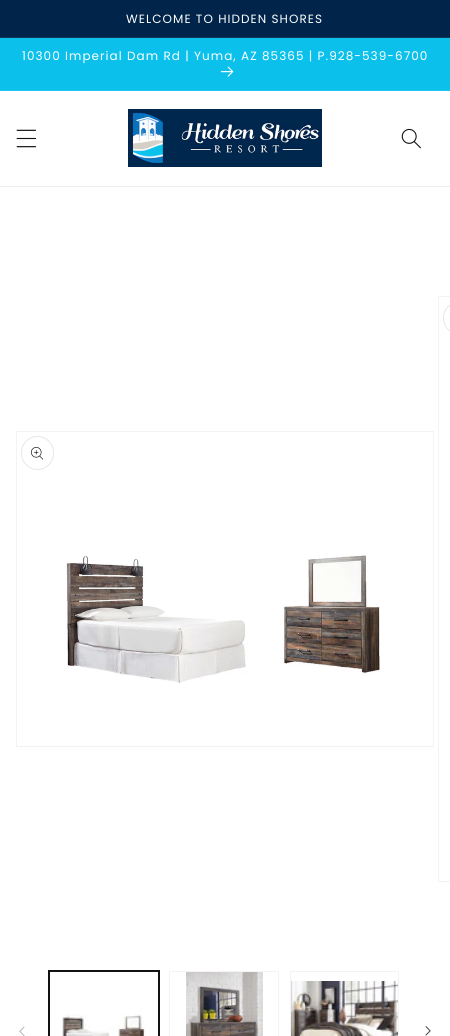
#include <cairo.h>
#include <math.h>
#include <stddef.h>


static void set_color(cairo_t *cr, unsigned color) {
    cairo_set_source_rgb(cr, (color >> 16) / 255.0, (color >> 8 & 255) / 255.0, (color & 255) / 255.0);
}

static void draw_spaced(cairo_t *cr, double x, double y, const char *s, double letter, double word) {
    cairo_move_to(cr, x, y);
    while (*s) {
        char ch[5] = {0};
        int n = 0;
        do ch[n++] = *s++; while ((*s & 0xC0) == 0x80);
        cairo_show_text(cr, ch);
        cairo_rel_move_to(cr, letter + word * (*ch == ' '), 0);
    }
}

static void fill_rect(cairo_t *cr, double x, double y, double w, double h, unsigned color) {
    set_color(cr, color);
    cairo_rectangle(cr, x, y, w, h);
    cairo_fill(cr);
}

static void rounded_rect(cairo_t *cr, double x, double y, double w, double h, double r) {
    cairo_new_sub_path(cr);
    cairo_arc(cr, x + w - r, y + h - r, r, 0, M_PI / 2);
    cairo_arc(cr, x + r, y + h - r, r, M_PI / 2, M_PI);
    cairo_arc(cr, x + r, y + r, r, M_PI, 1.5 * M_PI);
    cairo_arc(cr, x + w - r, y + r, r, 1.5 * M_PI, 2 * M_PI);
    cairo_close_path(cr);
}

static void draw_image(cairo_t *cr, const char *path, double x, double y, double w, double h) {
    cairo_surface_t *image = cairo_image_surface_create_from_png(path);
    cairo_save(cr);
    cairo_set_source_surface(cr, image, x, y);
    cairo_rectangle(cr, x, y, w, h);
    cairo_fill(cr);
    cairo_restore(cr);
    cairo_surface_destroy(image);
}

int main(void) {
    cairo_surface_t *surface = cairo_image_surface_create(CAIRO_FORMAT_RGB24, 450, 1036);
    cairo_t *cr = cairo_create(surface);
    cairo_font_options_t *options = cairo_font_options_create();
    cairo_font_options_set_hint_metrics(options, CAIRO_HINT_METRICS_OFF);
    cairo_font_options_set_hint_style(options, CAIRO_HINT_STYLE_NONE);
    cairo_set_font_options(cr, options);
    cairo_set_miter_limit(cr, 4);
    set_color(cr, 0xFFFFFF);
    cairo_paint(cr);
    fill_rect(cr, 0, 0, 450, 37, 0x00244A);
    fill_rect(cr, 0, 37, 450, 1, 0x143658);
    cairo_select_font_face(cr, "Poppins", CAIRO_FONT_SLANT_NORMAL, CAIRO_FONT_WEIGHT_NORMAL);
    cairo_set_font_size(cr, 12);
    set_color(cr, 0xFFFFFF);
    draw_spaced(cr, 126, 23, "WELCOME TO HIDDEN SHORES", 1.05, 0);
    fill_rect(cr, 0, 38, 450, 52, 0x0BC1EB);
    fill_rect(cr, 0, 90, 450, 1, 0x1FC6ED);
    set_color(cr, 0xFFFFFF);
    draw_spaced(cr, 22, 60, "10300 Imperial Dam Rd | Yuma, AZ 85365 | P.928-539-6700", 1.05, 0);
    draw_image(cr, "assets/img1.png", 221, 66, 13, 11);
    fill_rect(cr, 0, 186, 450, 1, 0xECECEC);
    draw_image(cr, "assets/img2.png", 16, 129, 20, 19);
    draw_image(cr, "assets/img3.png", 128, 109, 194, 58);
    draw_image(cr, "assets/img4.png", 401, 128, 20, 21);
    cairo_rectangle(cr, 16.5, 431.5, 417, 315);
    set_color(cr, 0xF3F3F3);
    cairo_set_line_width(cr, 1);
    cairo_stroke(cr);
    draw_image(cr, "assets/img5.png", 65, 554, 315, 129);
    rounded_rect(cr, 21.5, 436.5, 32, 33, 16);
    set_color(cr, 0xE7E7E7);
    cairo_stroke(cr);
    draw_image(cr, "assets/img6.png", 31, 447, 13, 13);
    cairo_rectangle(cr, 438.5, 296.5, 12, 585);
    set_color(cr, 0xF3F3F3);
    cairo_stroke(cr);
    rounded_rect(cr, 443.5, 301.5, 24, 33, 16.5);
    set_color(cr, 0xE7E7E7);
    cairo_stroke(cr);
    draw_image(cr, "assets/img7.png", 19, 1026, 6, 10);
    cairo_rectangle(cr, 48.5, 970.5, 111, 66);
    set_color(cr, 0x121212);
    cairo_stroke(cr);
    cairo_rectangle(cr, 49.5, 971.5, 109, 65);
    cairo_stroke(cr);
    draw_image(cr, "assets/img8.png", 62, 1014, 84, 22);
    cairo_rectangle(cr, 169.5, 971.5, 109, 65);
    set_color(cr, 0xF3F3F3);
    cairo_stroke(cr);
    draw_image(cr, "assets/img9.png", 186, 972, 77, 64);
    cairo_rectangle(cr, 290.5, 971.5, 108, 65);
    cairo_stroke(cr);
    draw_image(cr, "assets/img10.png", 291, 981, 107, 55);
    draw_image(cr, "assets/img11.png", 425, 1026, 6, 10);
    cairo_surface_write_to_png(surface, "output.png");
    cairo_font_options_destroy(options);
    cairo_destroy(cr);
    cairo_surface_destroy(surface);
    return 0;
}
